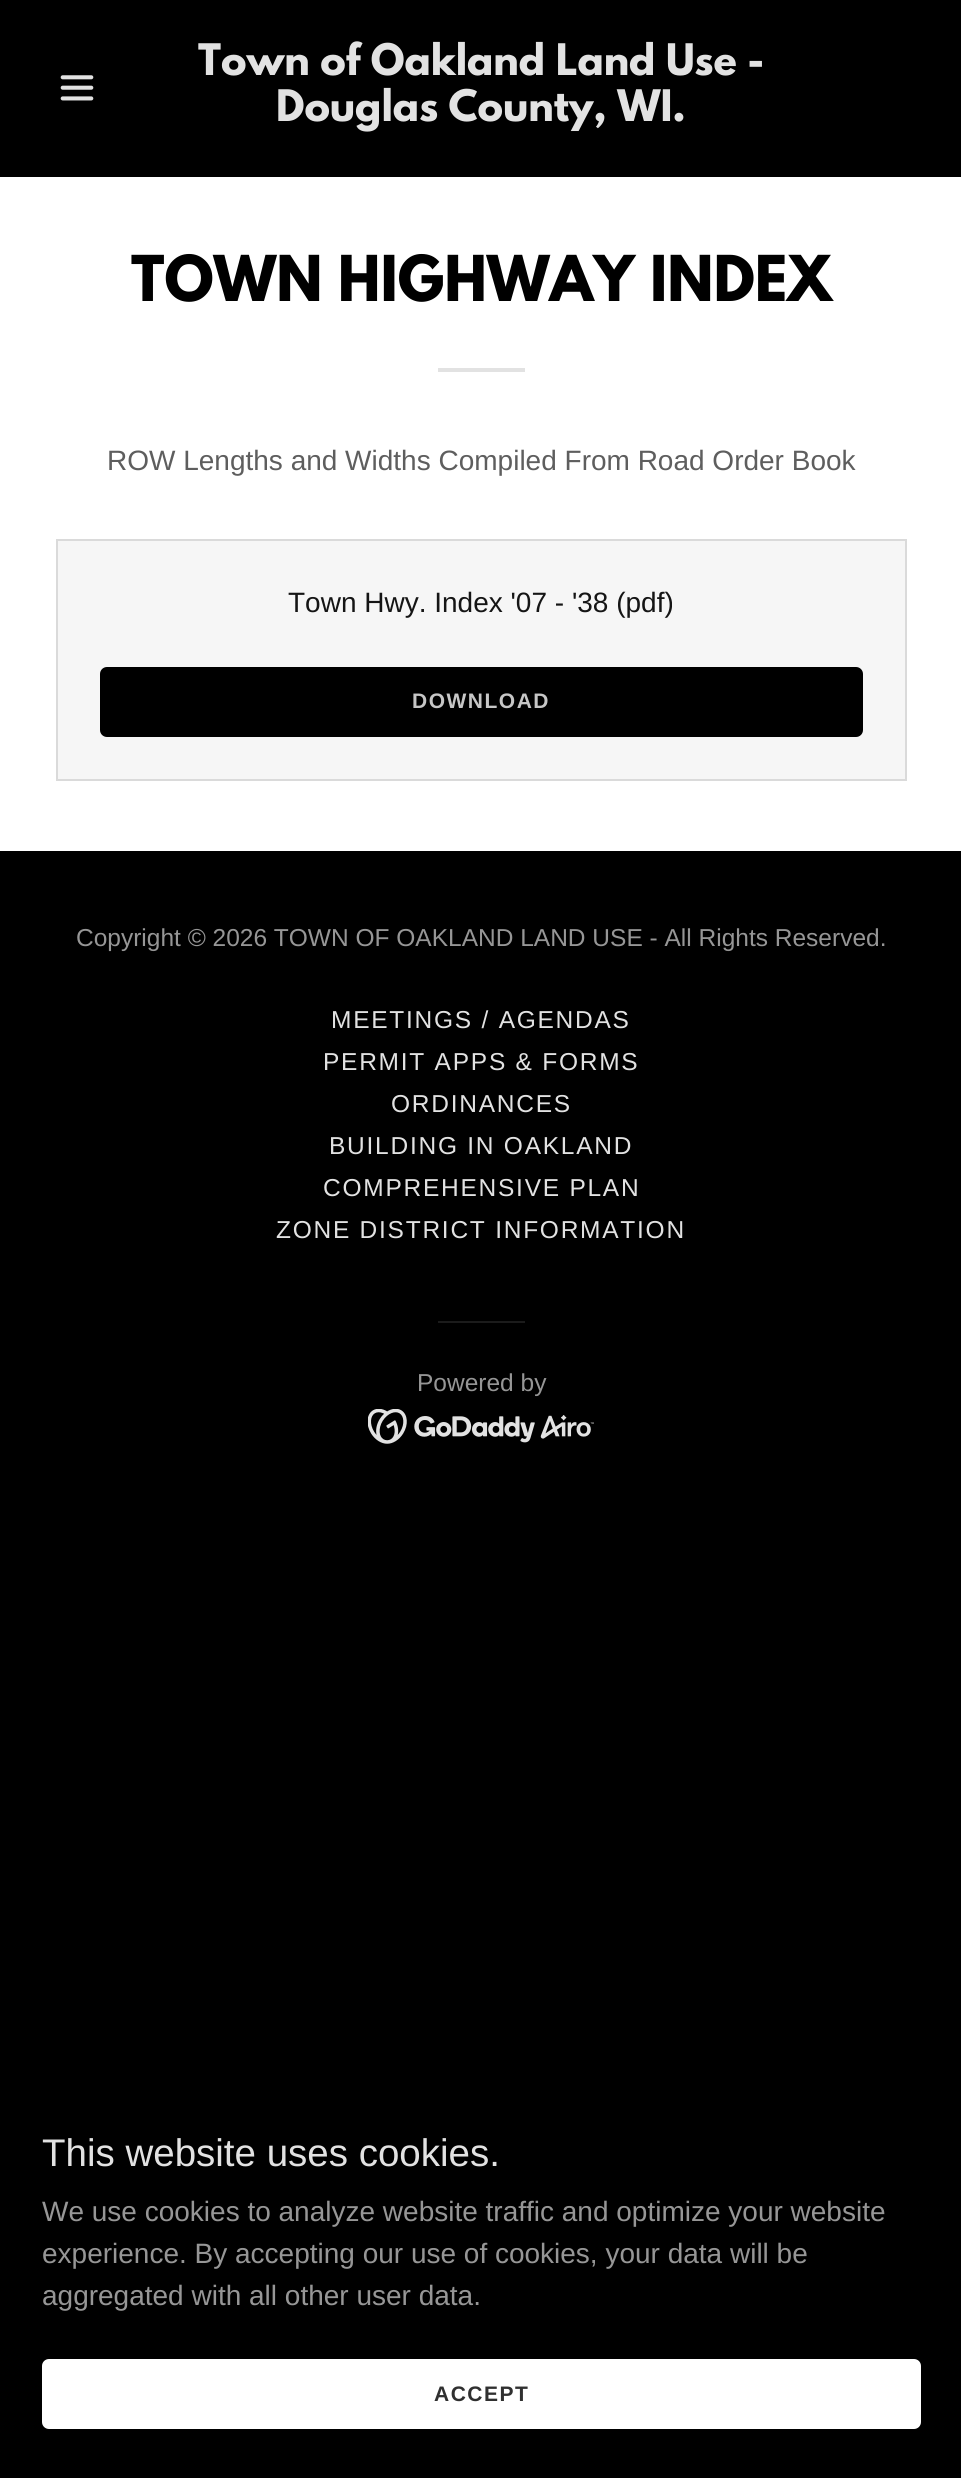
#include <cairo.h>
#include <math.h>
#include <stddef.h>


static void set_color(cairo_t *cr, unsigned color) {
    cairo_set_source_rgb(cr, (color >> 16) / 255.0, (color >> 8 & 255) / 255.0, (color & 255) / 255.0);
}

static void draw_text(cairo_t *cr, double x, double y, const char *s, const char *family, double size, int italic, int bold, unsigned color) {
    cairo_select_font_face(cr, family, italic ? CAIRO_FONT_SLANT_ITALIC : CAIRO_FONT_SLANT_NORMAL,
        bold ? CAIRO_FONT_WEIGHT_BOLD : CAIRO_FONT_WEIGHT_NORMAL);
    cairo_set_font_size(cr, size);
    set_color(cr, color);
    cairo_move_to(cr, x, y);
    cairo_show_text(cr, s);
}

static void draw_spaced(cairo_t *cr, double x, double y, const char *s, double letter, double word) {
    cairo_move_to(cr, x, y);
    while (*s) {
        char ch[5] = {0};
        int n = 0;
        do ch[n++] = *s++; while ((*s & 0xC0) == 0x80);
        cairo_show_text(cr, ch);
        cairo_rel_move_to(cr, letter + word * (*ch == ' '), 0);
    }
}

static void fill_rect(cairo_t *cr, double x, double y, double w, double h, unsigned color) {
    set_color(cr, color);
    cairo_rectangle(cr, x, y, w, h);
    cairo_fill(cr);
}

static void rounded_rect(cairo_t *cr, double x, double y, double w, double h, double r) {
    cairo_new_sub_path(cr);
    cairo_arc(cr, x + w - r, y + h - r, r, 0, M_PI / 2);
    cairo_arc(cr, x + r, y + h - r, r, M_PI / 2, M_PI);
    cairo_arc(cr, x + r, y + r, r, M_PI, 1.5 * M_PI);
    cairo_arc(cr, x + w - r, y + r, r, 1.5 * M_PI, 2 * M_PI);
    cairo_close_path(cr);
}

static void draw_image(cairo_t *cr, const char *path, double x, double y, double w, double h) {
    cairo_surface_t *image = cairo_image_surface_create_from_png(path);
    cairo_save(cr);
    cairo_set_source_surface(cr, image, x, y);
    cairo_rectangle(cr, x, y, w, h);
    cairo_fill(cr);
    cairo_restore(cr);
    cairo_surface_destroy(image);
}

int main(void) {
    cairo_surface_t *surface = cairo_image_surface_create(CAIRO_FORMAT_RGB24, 961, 2478);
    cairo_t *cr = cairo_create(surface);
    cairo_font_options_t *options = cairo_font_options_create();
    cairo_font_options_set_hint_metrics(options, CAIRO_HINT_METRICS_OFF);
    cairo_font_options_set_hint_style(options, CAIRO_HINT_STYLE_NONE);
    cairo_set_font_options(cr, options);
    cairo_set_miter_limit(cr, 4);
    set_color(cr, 0x000000);
    cairo_paint(cr);
    draw_image(cr, "assets/img1.png", 60, 75, 34, 26);
    draw_text(cr, 198, 75, "Town of Oakland Land Use -", "League Spartan", 38.5, 0, 1, 0xE2E2E2);
    draw_text(cr, 276, 121, "Douglas County, WI.", "League Spartan", 38.5, 0, 1, 0xE2E2E2);
    fill_rect(cr, 0, 177, 961, 674, 0xFFFFFF);
    draw_text(cr, 131, 301, "TOWN HIGHWAY INDEX", "League Spartan", 56, 0, 1, 0x000000);
    fill_rect(cr, 438, 368, 87, 4, 0xE2E2E2);
    draw_text(cr, 107, 470, "ROW Lengths and Widths Compiled From Road Order Book", "Liberation Sans", 28, 0, 0, 0x5E5E5E);
    set_color(cr, 0xF6F6F6);
    cairo_rectangle(cr, 57, 540, 849, 240);
    cairo_fill_preserve(cr);
    set_color(cr, 0xDADADA);
    cairo_stroke(cr);
    draw_text(cr, 288, 612, "Town Hwy. Index '07 - '38 (pdf)", "Liberation Sans", 28, 0, 0, 0x151515);
    set_color(cr, 0x000000);
    rounded_rect(cr, 100, 667, 763, 70, 7);
    cairo_fill(cr);
    cairo_select_font_face(cr, "Liberation Sans", CAIRO_FONT_SLANT_NORMAL, CAIRO_FONT_WEIGHT_BOLD);
    cairo_set_font_size(cr, 21);
    set_color(cr, 0xC6C6C6);
    draw_spaced(cr, 412, 708, "DOWNLOAD", 1.5, 0);
    draw_text(cr, 76, 946, "Copyright © 2026 TOWN OF OAKLAND LAND USE - All Rights Reserved.", "Liberation Sans", 24.5, 0, 0, 0x969696);
    set_color(cr, 0xE2E2E2);
    draw_spaced(cr, 331, 1028, "MEETINGS / AGENDAS", 1.75, 0);
    draw_spaced(cr, 323, 1070, "PERMIT APPS & FORMS", 1.75, 0);
    draw_spaced(cr, 391, 1112, "ORDINANCES", 1.75, 0);
    draw_spaced(cr, 329, 1154, "BUILDING IN OAKLAND", 1.75, 0);
    draw_spaced(cr, 323, 1196, "COMPREHENSIVE PLAN", 1.75, 0);
    draw_spaced(cr, 276, 1238, "ZONE DISTRICT INFORMATION", 1.75, 0);
    fill_rect(cr, 438, 1321, 87, 2, 0x1B1B1B);
    draw_text(cr, 417, 1391, "Powered by", "Liberation Sans", 24.5, 0, 0, 0x969696);
    draw_image(cr, "assets/img2.png", 368, 1409, 226, 35);
    draw_text(cr, 42, 2166, "This website uses cookies.", "Liberation Sans", 38.5, 0, 0, 0xE2E2E2);
    draw_text(cr, 42, 2221, "We use cookies to analyze website traffic and optimize your website", "Liberation Sans", 28, 0, 0, 0x969696);
    draw_text(cr, 42, 2263, "experience. By accepting our use of cookies, your data will be", "Liberation Sans", 28, 0, 0, 0x969696);
    draw_text(cr, 42, 2305, "aggregated with all other user data.", "Liberation Sans", 28, 0, 0, 0x969696);
    set_color(cr, 0xFFFFFF);
    rounded_rect(cr, 42, 2359, 879, 70, 7);
    cairo_fill(cr);
    cairo_select_font_face(cr, "Liberation Sans", CAIRO_FONT_SLANT_NORMAL, CAIRO_FONT_WEIGHT_BOLD);
    cairo_set_font_size(cr, 21);
    set_color(cr, 0x303030);
    draw_spaced(cr, 434, 2401, "ACCEPT", 1.5, 0);
    cairo_surface_write_to_png(surface, "output.png");
    cairo_font_options_destroy(options);
    cairo_destroy(cr);
    cairo_surface_destroy(surface);
    return 0;
}
